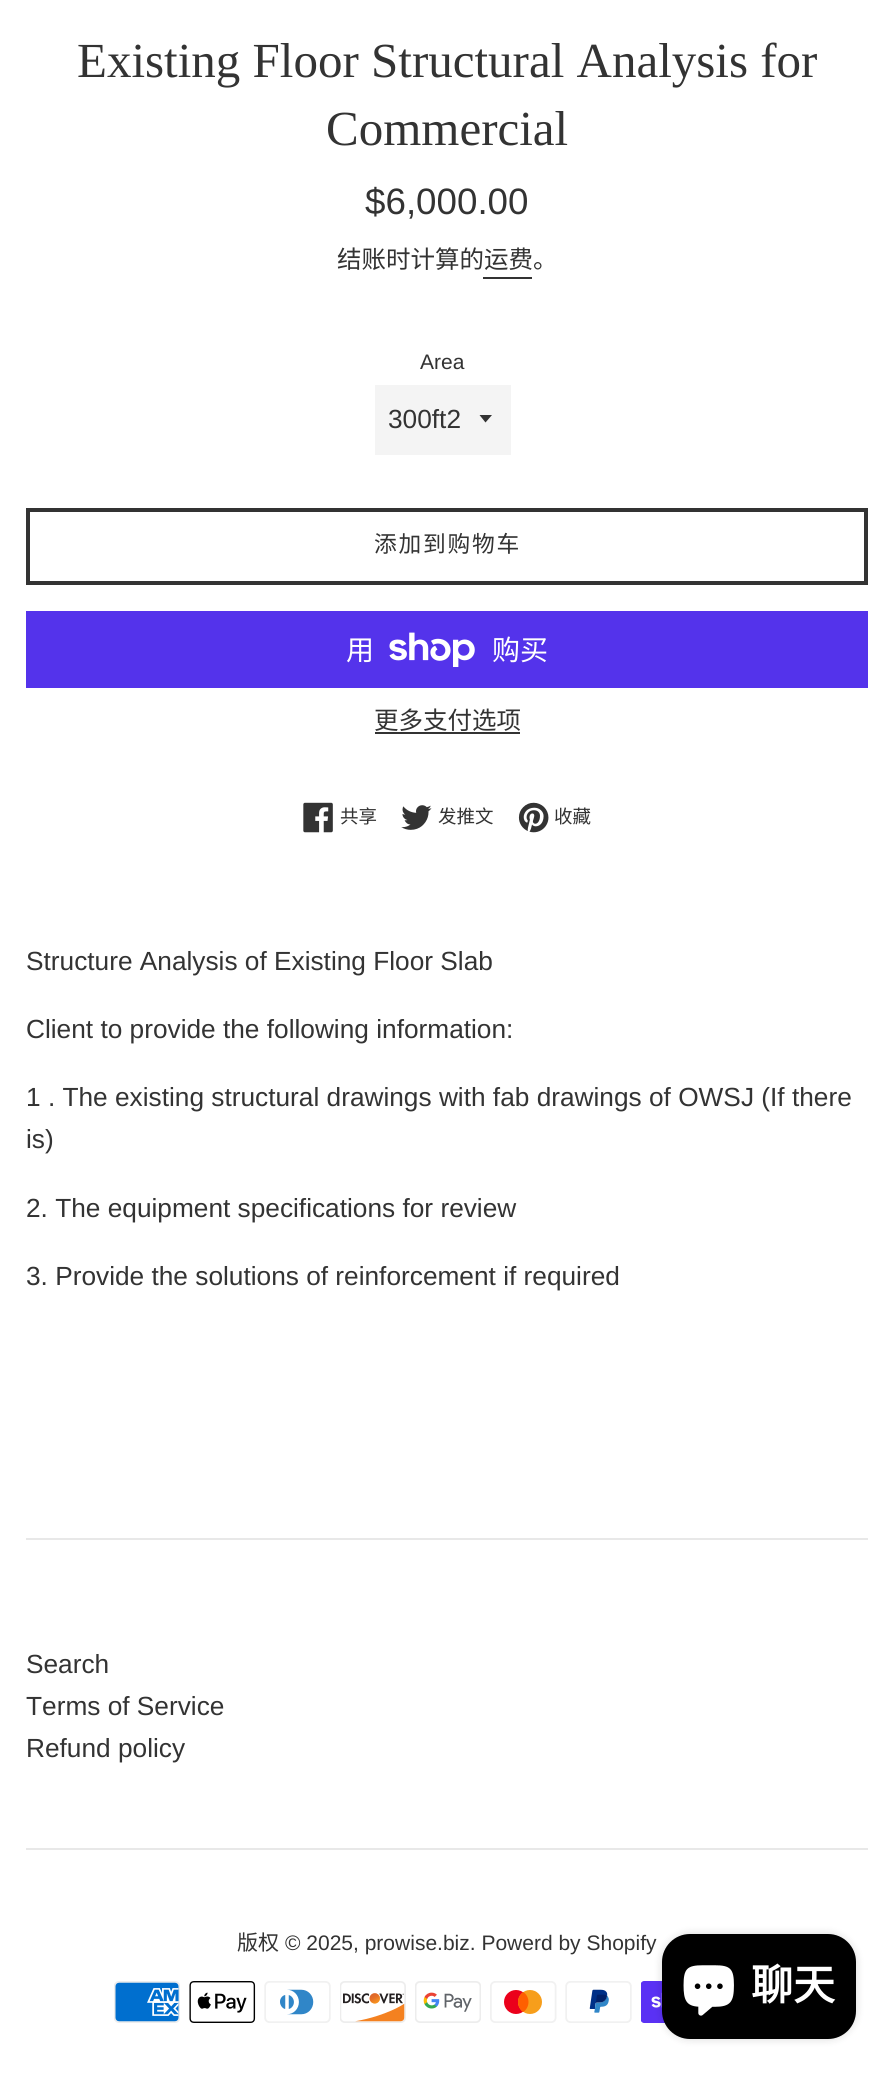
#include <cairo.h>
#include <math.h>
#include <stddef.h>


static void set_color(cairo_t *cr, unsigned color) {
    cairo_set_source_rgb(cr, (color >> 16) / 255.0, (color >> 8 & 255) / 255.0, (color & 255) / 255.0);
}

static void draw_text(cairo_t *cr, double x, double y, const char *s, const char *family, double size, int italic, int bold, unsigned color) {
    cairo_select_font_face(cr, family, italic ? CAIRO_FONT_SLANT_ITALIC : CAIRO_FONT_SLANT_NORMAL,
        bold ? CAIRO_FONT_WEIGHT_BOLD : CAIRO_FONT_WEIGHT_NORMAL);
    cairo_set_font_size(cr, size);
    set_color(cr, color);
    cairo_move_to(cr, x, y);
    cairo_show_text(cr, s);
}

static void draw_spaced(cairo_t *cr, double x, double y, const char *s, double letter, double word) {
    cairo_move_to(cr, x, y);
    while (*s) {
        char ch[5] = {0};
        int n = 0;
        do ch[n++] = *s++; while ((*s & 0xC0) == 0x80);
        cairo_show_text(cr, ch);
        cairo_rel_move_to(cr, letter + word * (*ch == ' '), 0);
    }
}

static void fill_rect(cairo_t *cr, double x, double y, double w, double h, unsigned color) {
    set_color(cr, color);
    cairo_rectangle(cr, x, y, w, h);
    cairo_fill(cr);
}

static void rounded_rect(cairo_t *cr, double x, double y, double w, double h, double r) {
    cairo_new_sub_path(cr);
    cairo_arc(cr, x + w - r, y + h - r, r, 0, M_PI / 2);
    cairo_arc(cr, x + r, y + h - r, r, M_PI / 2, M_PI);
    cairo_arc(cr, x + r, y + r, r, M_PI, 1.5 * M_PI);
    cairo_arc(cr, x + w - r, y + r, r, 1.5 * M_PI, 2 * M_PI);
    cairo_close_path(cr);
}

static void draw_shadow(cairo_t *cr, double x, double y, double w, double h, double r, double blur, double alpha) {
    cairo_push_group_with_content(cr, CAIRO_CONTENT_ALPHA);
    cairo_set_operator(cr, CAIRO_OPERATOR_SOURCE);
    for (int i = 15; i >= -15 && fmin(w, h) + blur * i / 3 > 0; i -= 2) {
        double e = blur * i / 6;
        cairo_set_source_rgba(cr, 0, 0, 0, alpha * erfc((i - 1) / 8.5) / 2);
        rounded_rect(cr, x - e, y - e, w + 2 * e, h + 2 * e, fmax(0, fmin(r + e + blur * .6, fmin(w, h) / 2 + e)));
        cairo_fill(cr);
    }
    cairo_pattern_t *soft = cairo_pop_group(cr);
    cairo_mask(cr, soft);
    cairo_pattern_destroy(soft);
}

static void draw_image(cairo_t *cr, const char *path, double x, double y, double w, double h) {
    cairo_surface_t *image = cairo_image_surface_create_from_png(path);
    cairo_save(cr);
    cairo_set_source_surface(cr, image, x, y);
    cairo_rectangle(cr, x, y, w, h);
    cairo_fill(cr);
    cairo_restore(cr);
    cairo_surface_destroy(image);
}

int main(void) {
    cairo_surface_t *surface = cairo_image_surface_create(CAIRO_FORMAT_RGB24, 894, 2075);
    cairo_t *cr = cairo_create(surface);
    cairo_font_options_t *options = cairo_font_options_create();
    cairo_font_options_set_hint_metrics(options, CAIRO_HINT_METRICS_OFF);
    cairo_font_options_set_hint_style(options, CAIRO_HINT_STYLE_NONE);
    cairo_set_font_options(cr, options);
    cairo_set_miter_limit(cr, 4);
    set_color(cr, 0xFFFFFF);
    cairo_paint(cr);
    draw_text(cr, 77, 77, "Existing Floor Structural Analysis for", "Liberation Serif", 49, 0, 0, 0x333333);
    draw_text(cr, 326, 145, "Commercial", "Liberation Serif", 49, 0, 0, 0x333333);
    draw_text(cr, 365, 214, "$6,000.00", "Liberation Sans", 36.75, 0, 0, 0x333333);
    draw_text(cr, 337, 268, "结账时计算的运费。", "Noto Sans CJK SC", 24.5, 0, 0, 0x333333);
    fill_rect(cr, 483, 277, 49, 2, 0x333333);
    draw_text(cr, 420, 369, "Area", "Liberation Sans", 21, 0, 0, 0x333333);
    fill_rect(cr, 375, 385, 136, 70, 0xF4F4F4);
    set_color(cr, 0x333333);
    cairo_new_path(cr);
    cairo_move_to(cr, 479.5, 415);
    cairo_line_to(cr, 485.5, 422.5);
    cairo_line_to(cr, 492, 415);
    cairo_close_path(cr);
    cairo_fill(cr);
    draw_text(cr, 388, 428, "300ft2", "Liberation Sans", 26.25, 0, 0, 0x333333);
    cairo_rectangle(cr, 28, 510, 838, 73);
    cairo_set_line_width(cr, 4);
    cairo_stroke(cr);
    cairo_select_font_face(cr, "Noto Sans CJK SC", CAIRO_FONT_SLANT_NORMAL, CAIRO_FONT_WEIGHT_NORMAL);
    cairo_set_font_size(cr, 22.75);
    draw_spaced(cr, 374, 552, "添加到购物车", 1.75, 0);
    fill_rect(cr, 26, 611, 842, 77, 0x5433EB);
    draw_text(cr, 346, 660, "用", "Noto Sans CJK SC", 28, 0, 0, 0xFFFFFF);
    draw_image(cr, "assets/img1.png", 389, 632, 86, 35);
    draw_text(cr, 492, 660, "购买", "Noto Sans CJK SC", 28, 0, 0, 0xFFFFFF);
    draw_text(cr, 374, 729, "更多支付选项", "Noto Sans CJK SC", 24.5, 0, 0, 0x333333);
    fill_rect(cr, 375, 732, 145, 2, 0x333333);
    draw_image(cr, "assets/img2.png", 303, 802, 30, 31);
    draw_text(cr, 340, 823, "共享", "Noto Sans CJK SC", 18.5, 0, 0, 0x333333);
    draw_image(cr, "assets/img3.png", 401, 805, 31, 25);
    draw_text(cr, 438, 823, "发推文", "Noto Sans CJK SC", 18.5, 0, 0, 0x333333);
    draw_image(cr, "assets/img4.png", 518, 802, 31, 31);
    draw_text(cr, 554, 823, "收藏", "Noto Sans CJK SC", 18.5, 0, 0, 0x333333);
    draw_text(cr, 26, 970, "Structure Analysis of Existing Floor Slab", "Liberation Sans", 26.25, 0, 0, 0x333333);
    draw_text(cr, 26, 1038, "Client to provide the following information:", "Liberation Sans", 26.25, 0, 0, 0x333333);
    draw_text(cr, 26, 1106, "1 . The existing structural drawings with fab drawings of OWSJ (If there", "Liberation Sans", 26.25, 0, 0, 0x333333);
    draw_text(cr, 26, 1148, "is)", "Liberation Sans", 26.25, 0, 0, 0x333333);
    draw_text(cr, 26, 1217, "2. The equipment specifications for review", "Liberation Sans", 26.25, 0, 0, 0x333333);
    draw_text(cr, 26, 1285, "3. Provide the solutions of reinforcement if required", "Liberation Sans", 26.25, 0, 0, 0x333333);
    fill_rect(cr, 26, 1538, 842, 2, 0xE8E8E8);
    draw_text(cr, 26, 1673, "Search", "Liberation Sans", 26.25, 0, 0, 0x333333);
    draw_text(cr, 26, 1715, "Terms of Service", "Liberation Sans", 26.25, 0, 0, 0x333333);
    draw_text(cr, 26, 1757, "Refund policy", "Liberation Sans", 26.25, 0, 0, 0x333333);
    fill_rect(cr, 26, 1848, 842, 2, 0xE8E8E8);
    draw_text(cr, 237, 1950, "版权", "Noto Sans CJK SC", 21, 0, 0, 0x333333);
    draw_text(cr, 285, 1950, "© 2025, prowise.biz. Powerd by Shopify", "Liberation Sans", 21, 0, 0, 0x333333);
    draw_image(cr, "assets/img5.png", 114, 1981, 66, 42);
    draw_image(cr, "assets/img6.png", 189, 1981, 67, 42);
    draw_image(cr, "assets/img7.png", 264, 1981, 67, 42);
    draw_image(cr, "assets/img8.png", 340, 1981, 66, 42);
    draw_image(cr, "assets/img9.png", 415, 1981, 66, 42);
    draw_image(cr, "assets/img10.png", 490, 1981, 67, 42);
    draw_image(cr, "assets/img11.png", 565, 1981, 67, 42);
    draw_image(cr, "assets/img12.png", 641, 1981, 24, 42);
    set_color(cr, 0x000000);
    draw_shadow(cr, 662, 1934, 194, 105, 28, 4.5, 0.15);
    set_color(cr, 0x000000);
    rounded_rect(cr, 662, 1934, 194, 105, 28);
    cairo_fill(cr);
    draw_image(cr, "assets/img13.png", 683, 1965, 51, 51);
    draw_text(cr, 751, 2000, "聊天", "Noto Sans CJK SC", 42, 0, 1, 0xFFFFFF);
    cairo_surface_write_to_png(surface, "output.png");
    cairo_font_options_destroy(options);
    cairo_destroy(cr);
    cairo_surface_destroy(surface);
    return 0;
}
